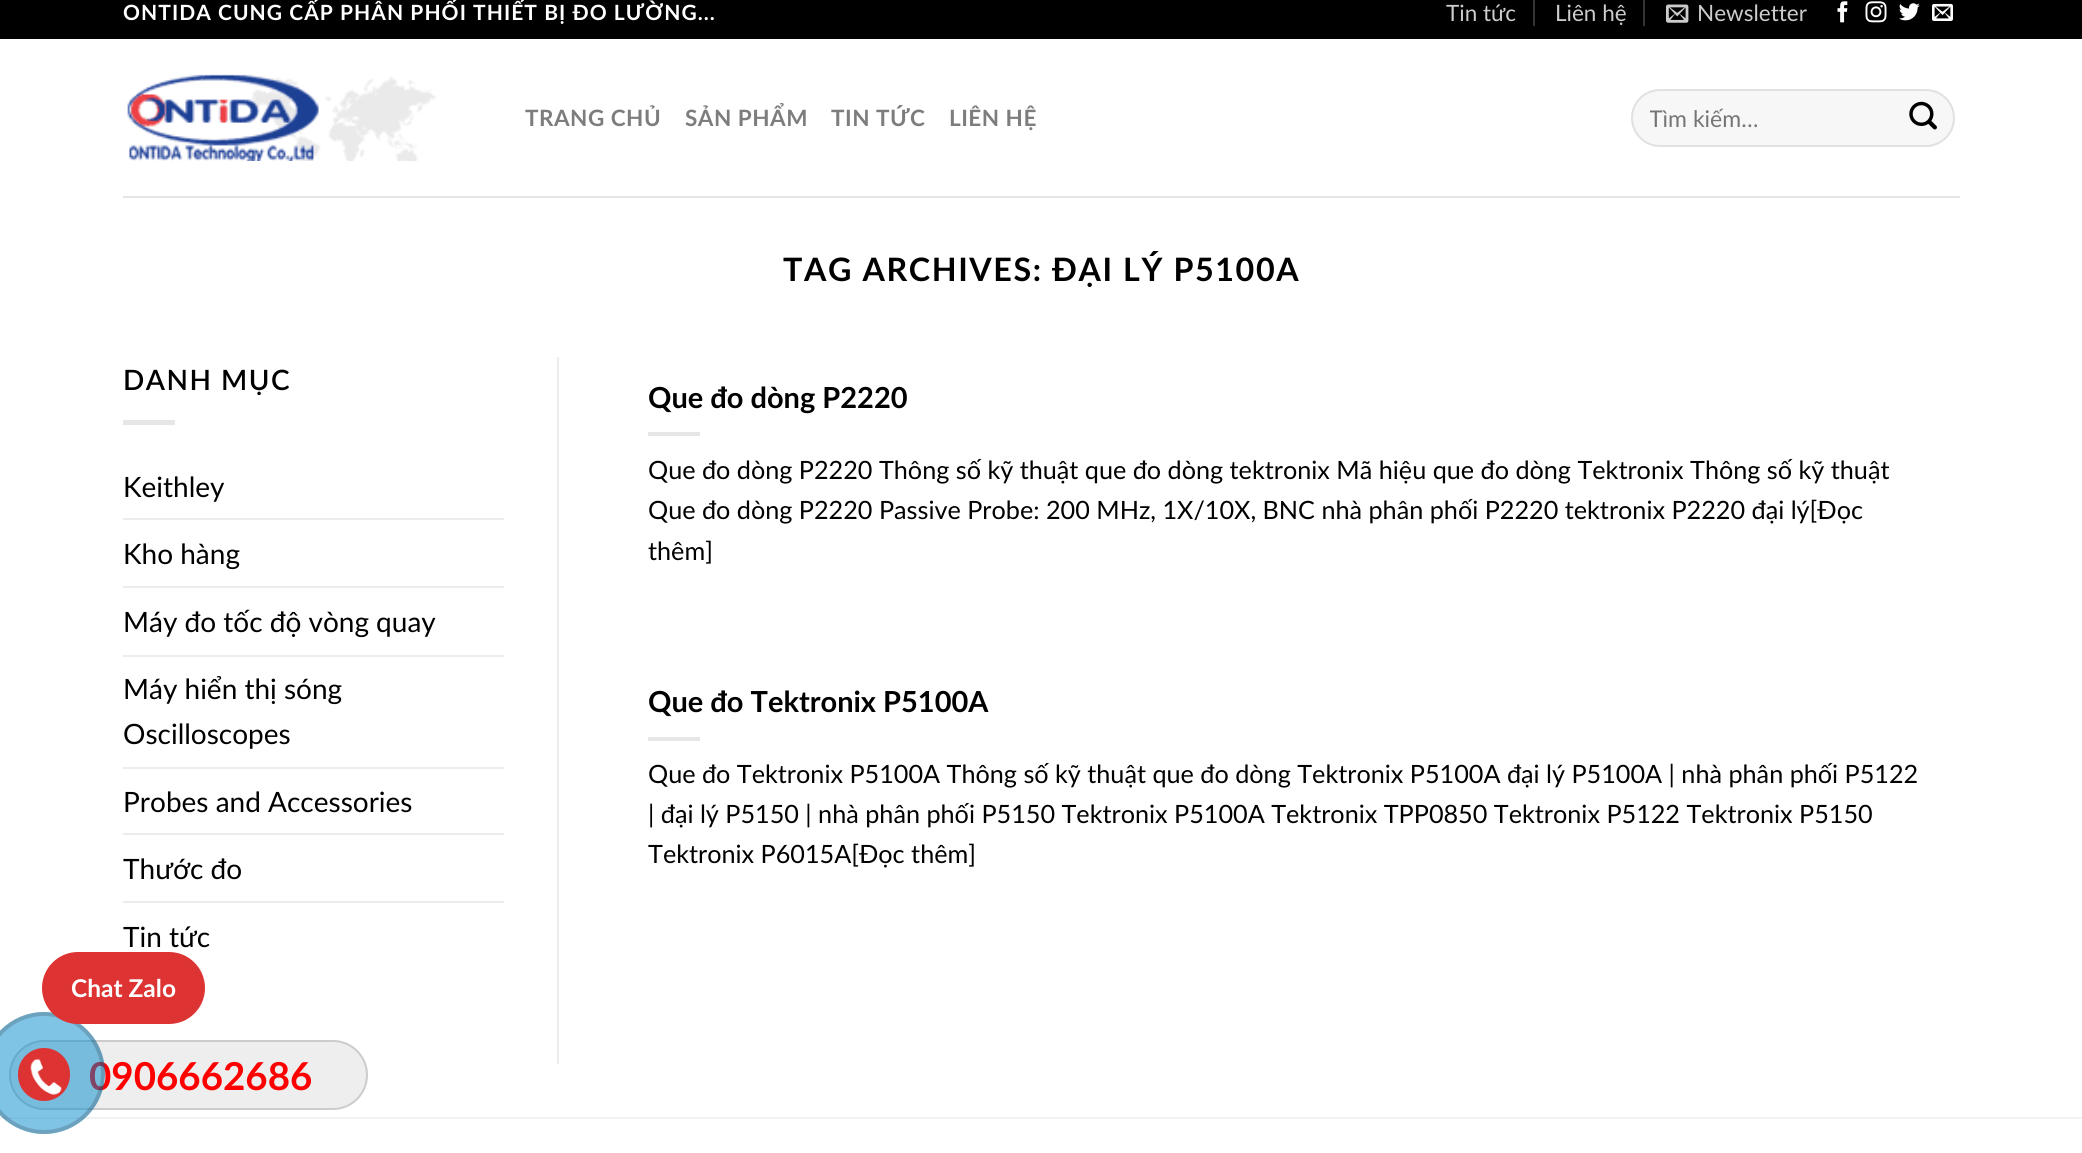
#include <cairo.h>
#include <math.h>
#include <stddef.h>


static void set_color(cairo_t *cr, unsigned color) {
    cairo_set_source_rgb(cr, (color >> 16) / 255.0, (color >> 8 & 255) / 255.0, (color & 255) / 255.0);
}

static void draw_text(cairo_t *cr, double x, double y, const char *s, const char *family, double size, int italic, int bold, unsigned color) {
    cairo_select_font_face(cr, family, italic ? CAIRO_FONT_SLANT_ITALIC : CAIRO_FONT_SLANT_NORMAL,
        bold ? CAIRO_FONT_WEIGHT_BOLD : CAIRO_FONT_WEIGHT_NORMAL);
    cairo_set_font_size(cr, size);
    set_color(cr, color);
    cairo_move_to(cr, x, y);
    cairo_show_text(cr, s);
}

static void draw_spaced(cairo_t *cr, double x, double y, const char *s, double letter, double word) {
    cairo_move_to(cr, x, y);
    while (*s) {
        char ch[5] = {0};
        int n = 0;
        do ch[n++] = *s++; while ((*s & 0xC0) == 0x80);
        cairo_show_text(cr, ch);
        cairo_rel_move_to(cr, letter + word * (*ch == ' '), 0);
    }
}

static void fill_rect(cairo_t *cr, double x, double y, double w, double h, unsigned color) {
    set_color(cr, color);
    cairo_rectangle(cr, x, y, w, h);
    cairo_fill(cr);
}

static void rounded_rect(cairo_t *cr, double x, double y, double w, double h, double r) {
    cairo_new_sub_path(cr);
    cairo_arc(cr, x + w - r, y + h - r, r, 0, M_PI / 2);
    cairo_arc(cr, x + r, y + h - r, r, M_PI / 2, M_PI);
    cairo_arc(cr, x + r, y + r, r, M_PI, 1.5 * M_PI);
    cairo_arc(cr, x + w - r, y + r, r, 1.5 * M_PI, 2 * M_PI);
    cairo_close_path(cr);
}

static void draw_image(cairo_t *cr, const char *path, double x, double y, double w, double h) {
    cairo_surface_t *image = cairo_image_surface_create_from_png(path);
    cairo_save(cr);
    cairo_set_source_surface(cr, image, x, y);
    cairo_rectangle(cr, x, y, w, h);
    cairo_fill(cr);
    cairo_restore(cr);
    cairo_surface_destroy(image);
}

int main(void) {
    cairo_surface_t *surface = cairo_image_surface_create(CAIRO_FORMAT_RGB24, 2082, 1153);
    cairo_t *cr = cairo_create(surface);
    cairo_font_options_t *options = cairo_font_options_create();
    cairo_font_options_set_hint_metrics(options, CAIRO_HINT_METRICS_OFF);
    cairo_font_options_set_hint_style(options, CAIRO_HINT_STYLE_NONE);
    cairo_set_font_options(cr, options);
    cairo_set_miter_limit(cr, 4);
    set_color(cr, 0xFFFFFF);
    cairo_paint(cr);
    fill_rect(cr, 0, 0, 2082, 39, 0x000000);
    cairo_select_font_face(cr, "Lato", CAIRO_FONT_SLANT_NORMAL, CAIRO_FONT_WEIGHT_BOLD);
    cairo_set_font_size(cr, 21);
    set_color(cr, 0xFFFFFF);
    draw_spaced(cr, 123, 20, "ONTIDA CUNG CẤP PHÂN PHỐI THIẾT BỊ ĐO LƯỜNG...", 1.05, 0);
    draw_text(cr, 1446, 21, "Tin tức", "Lato", 22.5, 0, 0, 0xCCCCCC);
    fill_rect(cr, 1533, 0, 2, 26, 0x333333);
    draw_text(cr, 1555, 21, "Liên hệ", "Lato", 22.5, 0, 0, 0xCCCCCC);
    fill_rect(cr, 1643, 0, 2, 26, 0x333333);
    draw_image(cr, "assets/img1.png", 1666, 4, 23, 19);
    draw_text(cr, 1697, 21, "Newsletter", "Lato", 22.5, 0, 0, 0xCCCCCC);
    draw_image(cr, "assets/img2.png", 1837, 1, 11, 22);
    draw_image(cr, "assets/img3.png", 1865, 1, 22, 22);
    draw_image(cr, "assets/img4.png", 1899, 3, 21, 18);
    draw_image(cr, "assets/img5.png", 1932, 3, 21, 18);
    draw_image(cr, "assets/img6.png", 127, 74, 309, 87);
    cairo_select_font_face(cr, "Lato", CAIRO_FONT_SLANT_NORMAL, CAIRO_FONT_WEIGHT_BOLD);
    set_color(cr, 0x7D7D7D);
    draw_spaced(cr, 525, 126, "TRANG CHỦ", 0.5, 0);
    draw_spaced(cr, 685, 126, "SẢN PHẨM", 0.5, 0);
    draw_spaced(cr, 831, 126, "TIN TỨC", 0.5, 0);
    draw_spaced(cr, 949, 126, "LIÊN HỆ", 0.5, 0);
    set_color(cr, 0xF7F7F7);
    rounded_rect(cr, 1631, 89, 324, 58, 29);
    cairo_fill(cr);
    rounded_rect(cr, 1632, 90, 322, 56, 28);
    cairo_set_source_rgba(cr, 0, 0, 0, 0.09);
    cairo_stroke(cr);
    cairo_save(cr);
    cairo_rectangle(cr, 1650, 103, 280, 28);
    cairo_clip(cr);
    draw_text(cr, 1649, 127, "Tìm kiếm…", "Lato", 23, 0, 0, 0x757575);
    cairo_restore(cr);
    draw_image(cr, "assets/img7.png", 1909, 101, 28, 29);
    fill_rect(cr, 123, 196, 1837, 2, 0xE6E6E6);
    cairo_set_font_size(cr, 32.25);
    set_color(cr, 0x000000);
    draw_spaced(cr, 783, 281, "TAG ARCHIVES: ĐẠI LÝ P5100A", 1.6, 0);
    cairo_select_font_face(cr, "Lato SemiBold", CAIRO_FONT_SLANT_NORMAL, CAIRO_FONT_WEIGHT_NORMAL);
    cairo_set_font_size(cr, 28);
    draw_spaced(cr, 123, 390, "DANH MỤC", 1.5, 0);
    fill_rect(cr, 123, 420, 52, 5, 0xE6E6E6);
    draw_text(cr, 123, 497, "Keithley", "Lato", 28, 0, 0, 0x000000);
    fill_rect(cr, 123, 518, 381, 2, 0xECECEC);
    draw_text(cr, 123, 564, "Kho hàng", "Lato", 28, 0, 0, 0x000000);
    fill_rect(cr, 123, 586, 381, 2, 0xECECEC);
    draw_text(cr, 123, 632, "Máy đo tốc độ vòng quay", "Lato", 28, 0, 0, 0x000000);
    fill_rect(cr, 123, 655, 381, 2, 0xECECEC);
    draw_text(cr, 123, 699, "Máy hiển thị sóng", "Lato", 28, 0, 0, 0x000000);
    draw_text(cr, 123, 744, "Oscilloscopes", "Lato", 28, 0, 0, 0x000000);
    fill_rect(cr, 123, 767, 381, 2, 0xECECEC);
    draw_text(cr, 123, 812, "Probes and Accessories", "Lato", 28, 0, 0, 0x000000);
    fill_rect(cr, 123, 833, 381, 2, 0xECECEC);
    draw_text(cr, 123, 879, "Thước đo", "Lato", 28, 0, 0, 0x000000);
    fill_rect(cr, 123, 901, 381, 2, 0xECECEC);
    draw_text(cr, 123, 947, "Tin tức", "Lato", 28, 0, 0, 0x000000);
    fill_rect(cr, 557, 357, 2, 707, 0xECECEC);
    draw_text(cr, 648, 408, "Que đo dòng P2220", "Lato", 29, 0, 1, 0x000000);
    fill_rect(cr, 648, 432, 52, 4, 0xE6E6E6);
    draw_text(cr, 648, 479, "Que đo dòng P2220 Thông số kỹ thuật que đo dòng tektronix Mã hiệu que đo dòng Tektronix Thông số kỹ thuật", "Lato", 25.2, 0, 0, 0x000000);
    draw_text(cr, 648, 519, "Que đo dòng P2220 Passive Probe: 200 MHz, 1X/10X, BNC nhà phân phối P2220 tektronix P2220 đại lý[Đọc", "Lato", 25.2, 0, 0, 0x000000);
    draw_text(cr, 648, 560, "thêm]", "Lato", 25.2, 0, 0, 0x000000);
    draw_text(cr, 648, 712, "Que đo Tektronix P5100A", "Lato", 29, 0, 1, 0x000000);
    fill_rect(cr, 648, 737, 52, 4, 0xE6E6E6);
    draw_text(cr, 648, 783, "Que đo Tektronix P5100A Thông số kỹ thuật que đo dòng Tektronix P5100A đại lý P5100A | nhà phân phối P5122", "Lato", 25.2, 0, 0, 0x000000);
    draw_text(cr, 648, 823, "| đại lý P5150 | nhà phân phối P5150 Tektronix P5100A Tektronix TPP0850 Tektronix P5122 Tektronix P5150", "Lato", 25.2, 0, 0, 0x000000);
    draw_text(cr, 648, 863, "Tektronix P6015A[Đọc thêm]", "Lato", 25.2, 0, 0, 0x000000);
    fill_rect(cr, 0, 1117, 2082, 2, 0xF2F2F2);
    set_color(cr, 0xEEEEEE);
    rounded_rect(cr, 10, 1041, 357, 68, 34);
    cairo_fill_preserve(cr);
    set_color(cr, 0xCCCCCC);
    cairo_stroke(cr);
    draw_text(cr, 89, 1090, "0906662686", "Lato", 38.5, 0, 1, 0xFF0000);
    cairo_set_source_rgba(cr, 0, 0.533, 0.8, 0.5);
    cairo_new_path(cr);
    cairo_arc(cr, 44, 1073, 61, 0, 2 * M_PI);
    cairo_fill(cr);
    cairo_arc(cr, 44, 1073, 59, 0, 2 * M_PI);
    cairo_set_source_rgba(cr, 0.118, 0.118, 0.118, 0.2);
    cairo_set_line_width(cr, 4);
    cairo_stroke(cr);
    set_color(cr, 0xDD3333);
    rounded_rect(cr, 42, 952, 163, 72, 36);
    cairo_fill(cr);
    draw_text(cr, 71, 997, "Chat Zalo", "Lato", 24.5, 0, 1, 0xFFFFFF);
    set_color(cr, 0xDD3333);
    rounded_rect(cr, 18, 1048, 52, 53, 26);
    cairo_fill(cr);
    draw_image(cr, "assets/img8.png", 30, 1058, 32, 37);
    cairo_surface_write_to_png(surface, "output.png");
    cairo_font_options_destroy(options);
    cairo_destroy(cr);
    cairo_surface_destroy(surface);
    return 0;
}
